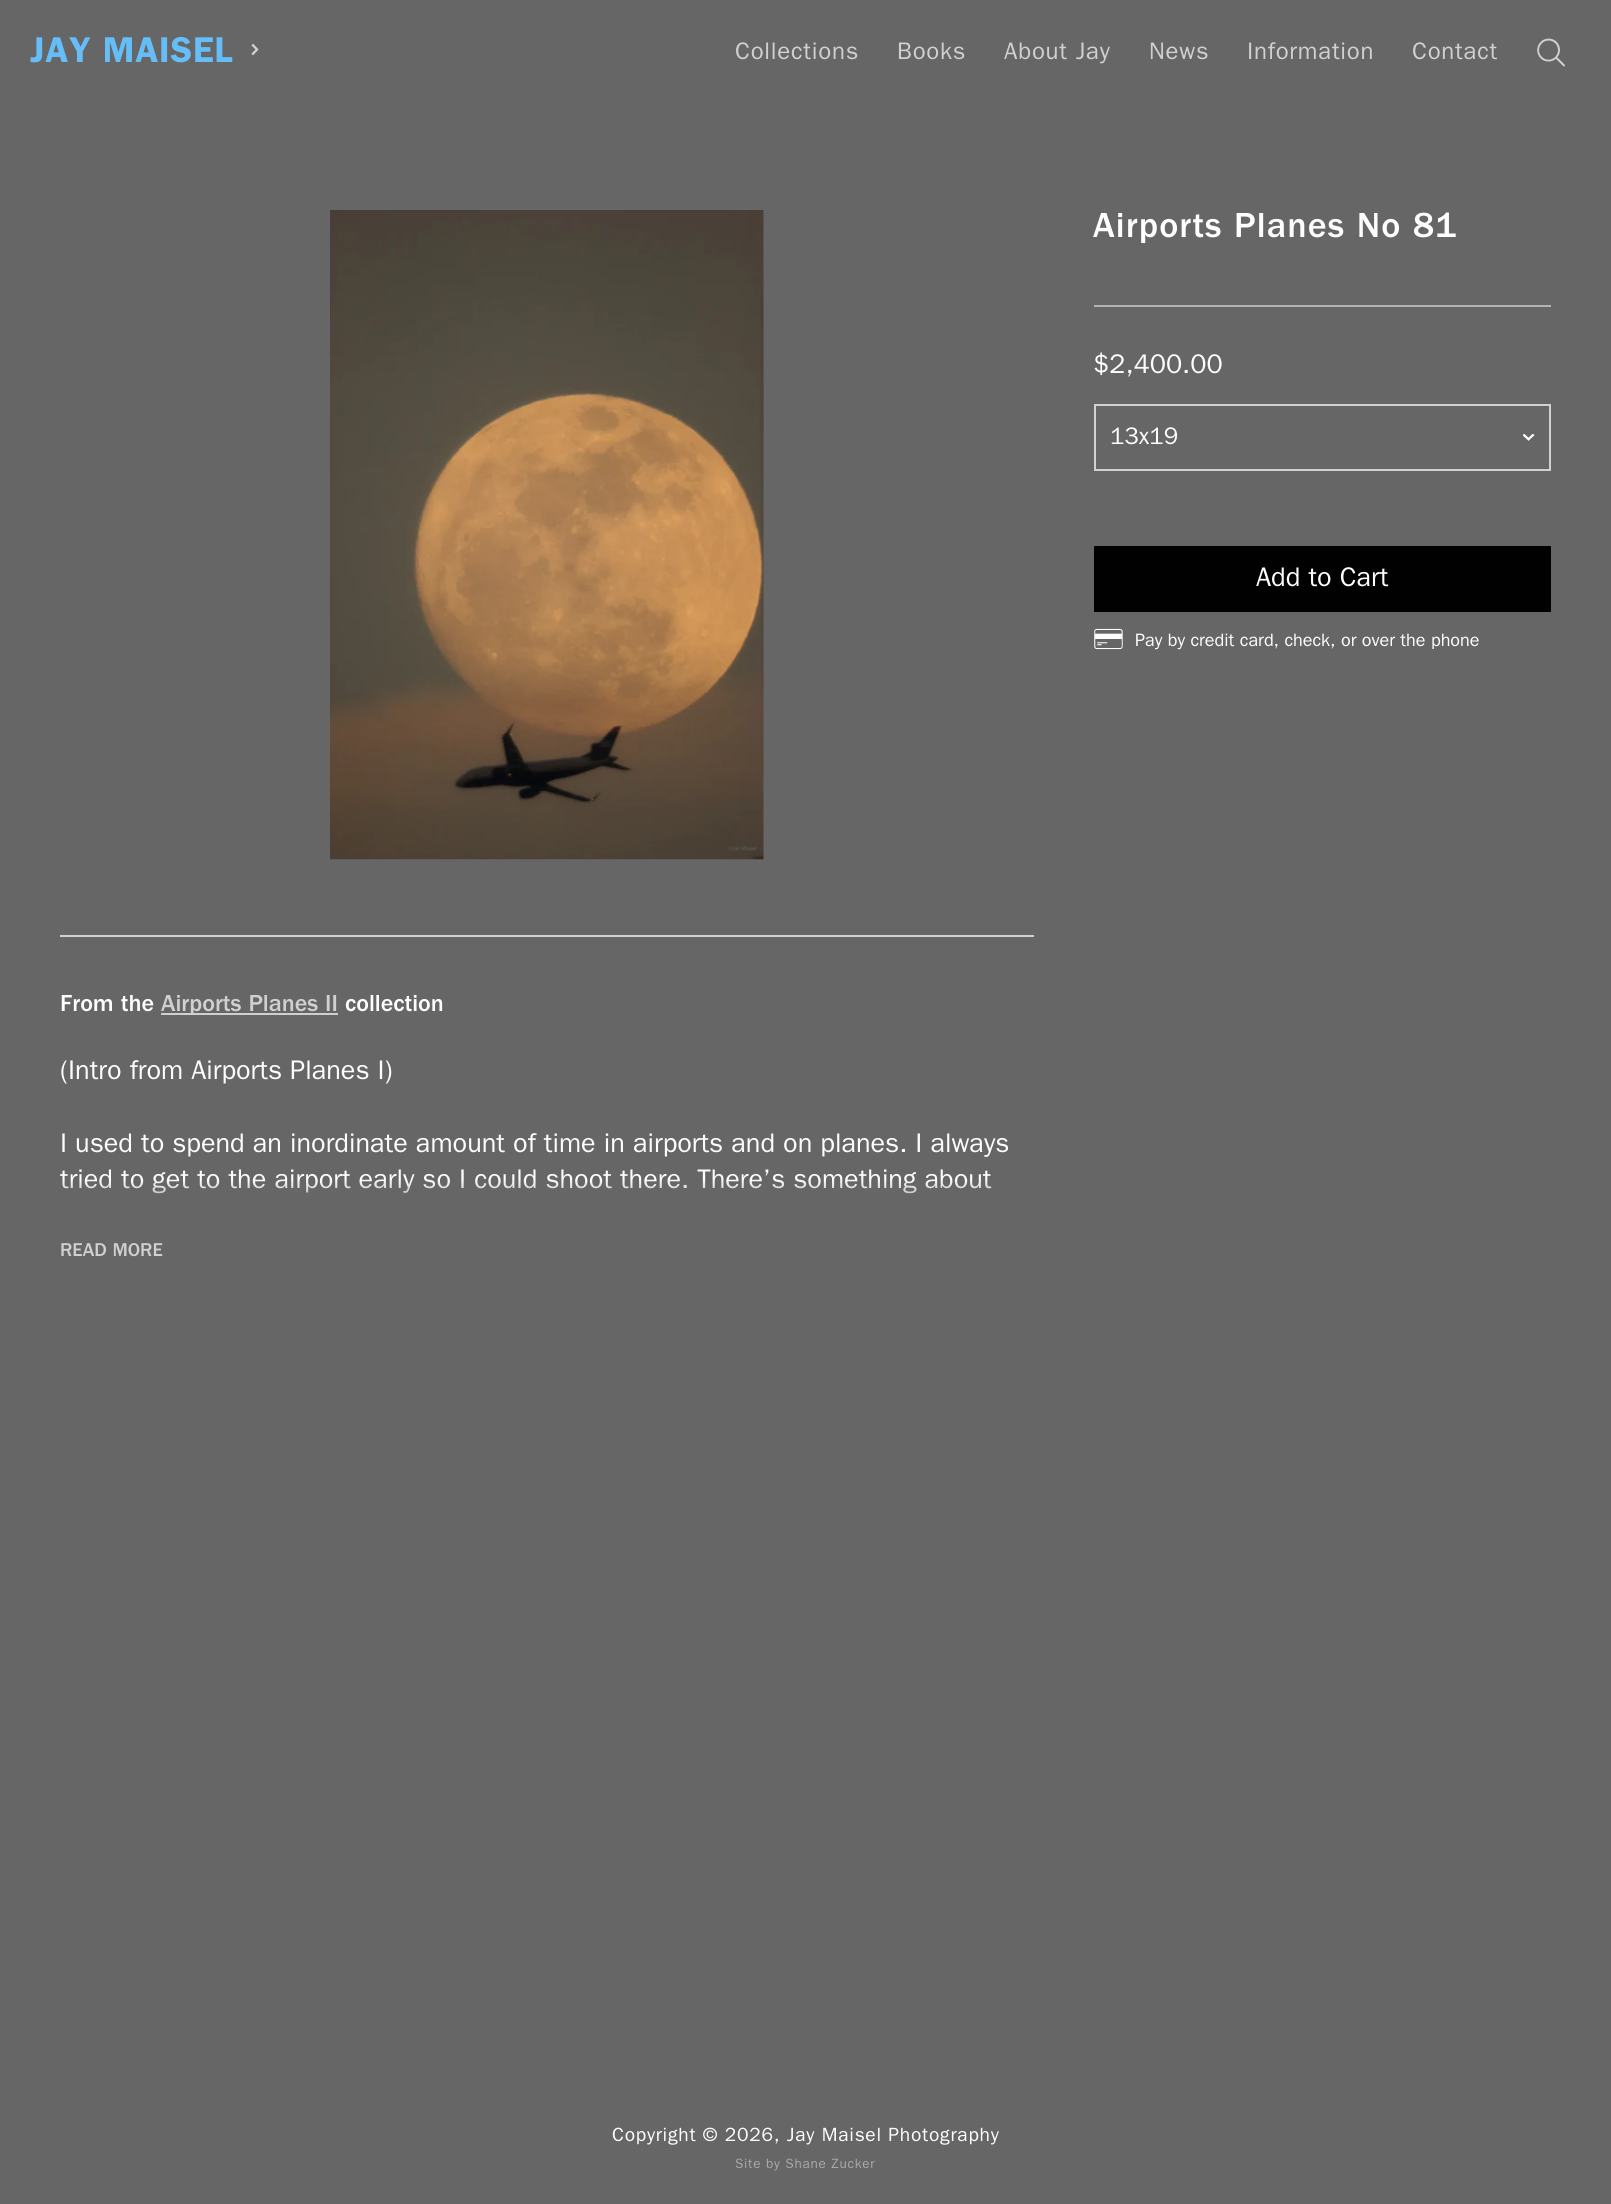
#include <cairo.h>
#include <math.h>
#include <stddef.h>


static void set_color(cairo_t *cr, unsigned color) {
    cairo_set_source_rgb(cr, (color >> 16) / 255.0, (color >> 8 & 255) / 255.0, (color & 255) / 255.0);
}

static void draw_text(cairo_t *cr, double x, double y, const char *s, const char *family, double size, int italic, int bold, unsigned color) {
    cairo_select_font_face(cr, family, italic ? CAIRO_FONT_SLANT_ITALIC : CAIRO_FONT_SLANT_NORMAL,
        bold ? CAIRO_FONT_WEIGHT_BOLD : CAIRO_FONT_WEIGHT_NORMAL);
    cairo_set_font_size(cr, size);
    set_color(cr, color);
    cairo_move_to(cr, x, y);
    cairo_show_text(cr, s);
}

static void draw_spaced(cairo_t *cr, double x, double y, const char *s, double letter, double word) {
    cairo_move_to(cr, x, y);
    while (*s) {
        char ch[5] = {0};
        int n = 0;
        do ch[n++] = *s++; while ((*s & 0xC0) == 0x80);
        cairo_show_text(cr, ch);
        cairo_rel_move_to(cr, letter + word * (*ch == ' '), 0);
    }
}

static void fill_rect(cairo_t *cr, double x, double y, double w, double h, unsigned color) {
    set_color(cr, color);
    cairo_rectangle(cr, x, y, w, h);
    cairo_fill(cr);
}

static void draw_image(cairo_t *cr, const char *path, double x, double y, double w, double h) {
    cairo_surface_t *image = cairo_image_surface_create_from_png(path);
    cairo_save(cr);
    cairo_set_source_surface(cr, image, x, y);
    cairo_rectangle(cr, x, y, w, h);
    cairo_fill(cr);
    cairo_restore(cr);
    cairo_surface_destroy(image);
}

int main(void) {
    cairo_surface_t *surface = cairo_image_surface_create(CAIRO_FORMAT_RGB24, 1611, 2204);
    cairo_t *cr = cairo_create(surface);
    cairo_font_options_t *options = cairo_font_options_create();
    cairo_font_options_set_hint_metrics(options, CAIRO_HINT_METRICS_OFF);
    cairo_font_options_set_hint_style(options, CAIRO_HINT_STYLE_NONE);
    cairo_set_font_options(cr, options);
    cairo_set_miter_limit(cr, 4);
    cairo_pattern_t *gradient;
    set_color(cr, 0x666666);
    cairo_paint(cr);
    cairo_select_font_face(cr, "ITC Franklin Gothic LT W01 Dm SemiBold", CAIRO_FONT_SLANT_NORMAL, CAIRO_FONT_WEIGHT_NORMAL);
    cairo_set_font_size(cr, 36);
    set_color(cr, 0x66BEF9);
    draw_spaced(cr, 30, 62, "JAY MAISEL", 0.75, 0);
    draw_image(cr, "assets/img1.png", 251, 43, 8, 13);
    cairo_select_font_face(cr, "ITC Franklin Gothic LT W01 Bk", CAIRO_FONT_SLANT_NORMAL, CAIRO_FONT_WEIGHT_NORMAL);
    cairo_set_font_size(cr, 24);
    set_color(cr, 0xD0D0D0);
    draw_spaced(cr, 735, 59, "Collections", 0.75, 0);
    draw_spaced(cr, 897, 59, "Books", 0.75, 0);
    draw_spaced(cr, 1004, 59, "About Jay", 0.75, 0);
    draw_spaced(cr, 1149, 59, "News", 0.75, 0);
    draw_spaced(cr, 1247, 59, "Information", 0.75, 0);
    draw_spaced(cr, 1412, 59, "Contact", 0.75, 0);
    draw_image(cr, "assets/img2.png", 1537, 38, 28, 29);
    fill_rect(cr, 1094, 305, 457, 2, 0xB3B3B3);
    cairo_select_font_face(cr, "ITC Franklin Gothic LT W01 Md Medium", CAIRO_FONT_SLANT_NORMAL, CAIRO_FONT_WEIGHT_NORMAL);
    cairo_set_font_size(cr, 36);
    set_color(cr, 0xFDFDFD);
    draw_spaced(cr, 1093, 237, "Airports Planes No 81", 1.1, 0);
    draw_text(cr, 1093, 373, "$2,400.00", "ITC Franklin Gothic LT W01 Bk", 27, 0, 0, 0xFDFDFD);
    draw_image(cr, "assets/img3.png", 1523, 434, 12, 7);
    cairo_rectangle(cr, 1095, 405, 455, 65);
    set_color(cr, 0xD1D1D1);
    cairo_stroke(cr);
    draw_text(cr, 1110, 444, "13x19", "ITC Franklin Gothic LT W01 Bk", 24, 0, 0, 0xFDFDFD);
    fill_rect(cr, 1094, 546, 457, 66, 0x010101);
    draw_text(cr, 1256, 586, "Add to Cart", "ITC Franklin Gothic LT W01 Bk", 27, 0, 0, 0xFDFDFD);
    draw_image(cr, "assets/img4.png", 1094, 628, 29, 22);
    draw_text(cr, 1135, 646, "Pay by credit card, check, or over the phone", "ITC Franklin Gothic LT W01 Bk", 18, 0, 0, 0xFDFDFD);
    draw_image(cr, "assets/img5.png", 330, 210, 434, 650);
    fill_rect(cr, 60, 935, 974, 2, 0xD0D0D0);
    draw_text(cr, 60, 1011, "From the", "ITC Franklin Gothic LT W01 Md Medium", 24, 0, 0, 0xFDFDFD);
    fill_rect(cr, 161, 1013, 177, 2, 0xD0D0D0);
    draw_text(cr, 161, 1011, "Airports Planes II", "ITC Franklin Gothic LT W01 Md Medium", 24, 0, 0, 0xD0D0D0);
    draw_text(cr, 345, 1011, "collection", "ITC Franklin Gothic LT W01 Md Medium", 24, 0, 0, 0xFDFDFD);
    draw_text(cr, 60, 1079, "(Intro from Airports Planes I)", "ITC Franklin Gothic LT W01 Bk", 27, 0, 0, 0xFDFDFD);
    draw_text(cr, 60, 1152, "I used to spend an inordinate amount of time in airports and on planes. I always", "ITC Franklin Gothic LT W01 Bk", 27, 0, 0, 0xFDFDFD);
    draw_text(cr, 60, 1188, "tried to get to the airport early so I could shoot there. There’s something about", "ITC Franklin Gothic LT W01 Bk", 27, 0, 0, 0xFDFDFD);
    gradient = cairo_pattern_create_linear(547, 1179, 547, 1262);
    cairo_pattern_add_color_stop_rgba(gradient, 0, 0.4, 0.4, 0.4, 0);
    cairo_pattern_add_color_stop_rgba(gradient, 0.5, 0.4, 0.4, 0.4, 1);
    cairo_set_source(cr, gradient);
    cairo_pattern_destroy(gradient);
    cairo_rectangle(cr, 62, 1180, 930, 14);
    cairo_fill(cr);
    draw_text(cr, 60, 1256, "READ MORE", "ITC Franklin Gothic LT W01 Md Medium", 19.2, 0, 0, 0xD0D0D0);
    cairo_select_font_face(cr, "ITC Franklin Gothic LT W01 Bk", CAIRO_FONT_SLANT_NORMAL, CAIRO_FONT_WEIGHT_NORMAL);
    set_color(cr, 0xFDFDFD);
    draw_spaced(cr, 612, 2141, "Copyright © 2026, Jay Maisel Photography", 0.75, 0);
    cairo_set_font_size(cr, 13.5);
    set_color(cr, 0xAAAAAA);
    draw_spaced(cr, 735, 2168, "Site by Shane Zucker", 0.75, 0);
    cairo_surface_write_to_png(surface, "output.png");
    cairo_font_options_destroy(options);
    cairo_destroy(cr);
    cairo_surface_destroy(surface);
    return 0;
}
